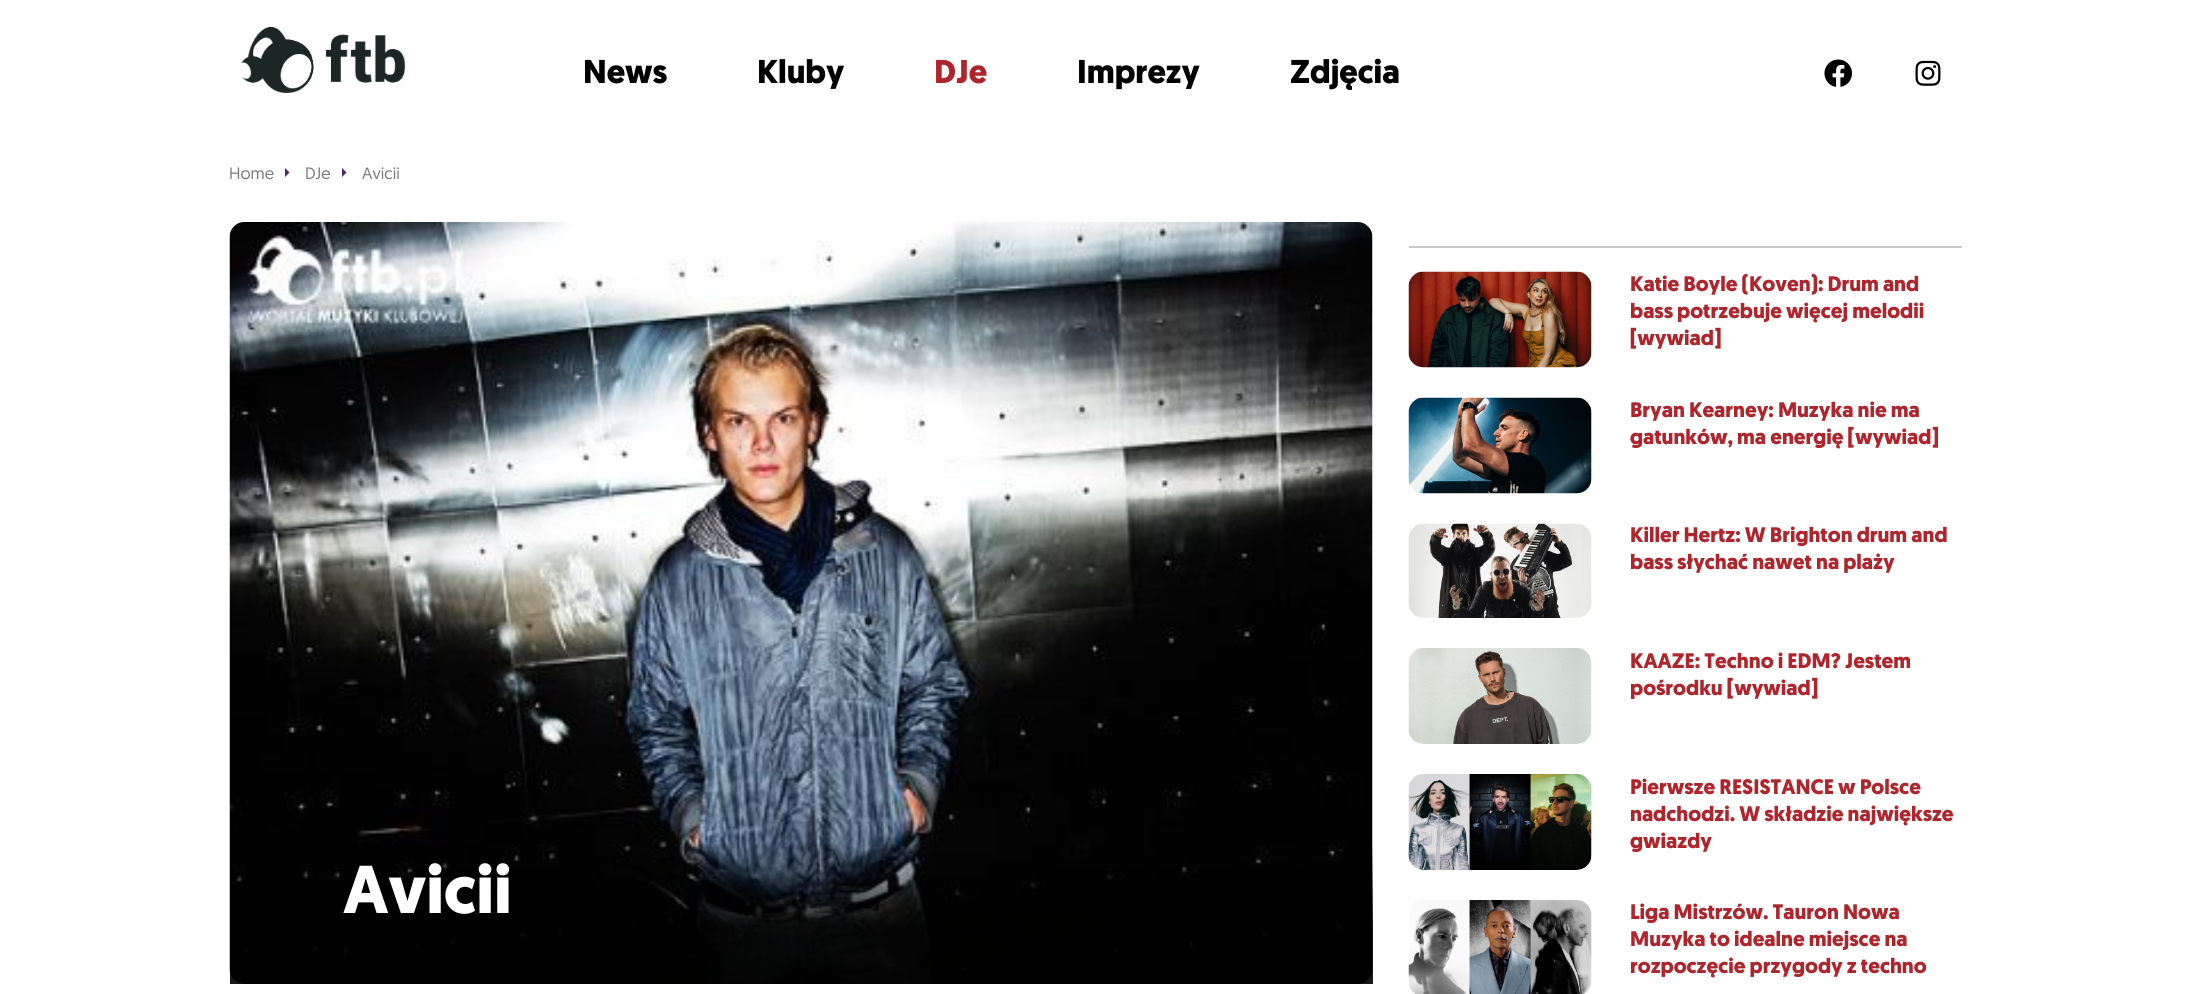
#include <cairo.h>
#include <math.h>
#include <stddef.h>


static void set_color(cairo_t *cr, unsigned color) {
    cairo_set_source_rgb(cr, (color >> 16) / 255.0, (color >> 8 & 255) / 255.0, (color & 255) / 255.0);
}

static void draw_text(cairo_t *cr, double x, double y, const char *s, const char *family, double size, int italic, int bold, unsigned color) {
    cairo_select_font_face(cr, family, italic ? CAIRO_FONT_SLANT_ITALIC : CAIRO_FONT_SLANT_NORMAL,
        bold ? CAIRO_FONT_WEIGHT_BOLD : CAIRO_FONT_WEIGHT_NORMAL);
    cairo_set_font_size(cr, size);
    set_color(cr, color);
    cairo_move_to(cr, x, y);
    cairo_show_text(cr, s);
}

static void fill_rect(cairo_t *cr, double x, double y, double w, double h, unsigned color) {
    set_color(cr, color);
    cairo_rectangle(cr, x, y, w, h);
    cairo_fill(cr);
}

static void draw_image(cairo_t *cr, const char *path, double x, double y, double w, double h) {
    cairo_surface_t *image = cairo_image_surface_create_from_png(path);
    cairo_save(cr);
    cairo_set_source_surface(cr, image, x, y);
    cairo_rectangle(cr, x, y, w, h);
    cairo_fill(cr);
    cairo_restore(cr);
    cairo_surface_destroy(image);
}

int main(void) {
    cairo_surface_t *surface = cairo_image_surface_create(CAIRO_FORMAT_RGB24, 2191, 994);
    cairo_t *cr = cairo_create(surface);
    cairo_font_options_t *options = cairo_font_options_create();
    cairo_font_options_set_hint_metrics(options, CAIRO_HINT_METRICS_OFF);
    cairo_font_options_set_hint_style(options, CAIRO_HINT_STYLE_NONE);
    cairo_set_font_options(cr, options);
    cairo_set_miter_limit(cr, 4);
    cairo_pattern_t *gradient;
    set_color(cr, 0xFFFFFF);
    cairo_paint(cr);
    draw_image(cr, "assets/img1.png", 241, 27, 165, 66);
    draw_text(cr, 583, 83, "News", "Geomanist", 33, 0, 1, 0x000000);
    draw_text(cr, 757, 83, "Kluby", "Geomanist", 33, 0, 1, 0x000000);
    draw_text(cr, 934, 83, "DJe", "Geomanist", 33, 0, 1, 0xAE252B);
    draw_text(cr, 1077, 83, "Imprezy", "Geomanist", 33, 0, 1, 0x000000);
    draw_text(cr, 1290, 83, "Zdjęcia", "Geomanist", 33, 0, 1, 0x000000);
    draw_image(cr, "assets/img2.png", 1824, 59, 29, 28);
    draw_image(cr, "assets/img3.png", 1915, 60, 26, 26);
    draw_text(cr, 229, 179, "Home", "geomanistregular", 16.5, 0, 0, 0x777777);
    draw_text(cr, 305, 179, "DJe", "geomanistregular", 16.5, 0, 0, 0x777777);
    set_color(cr, 0x502767);
    cairo_new_path(cr);
    cairo_move_to(cr, 285, 177);
    cairo_line_to(cr, 285, 168);
    cairo_line_to(cr, 289.5, 172.5);
    cairo_close_path(cr);
    cairo_move_to(cr, 342, 177);
    cairo_line_to(cr, 342, 168);
    cairo_line_to(cr, 346.5, 172.5);
    cairo_close_path(cr);
    cairo_fill(cr);
    draw_text(cr, 362, 179, "Avicii", "geomanistregular", 16.5, 0, 0, 0x777777);
    draw_image(cr, "assets/img4.png", 229, 222, 1144, 762);
    gradient = cairo_pattern_create_linear(801, 842, 801, 984);
    cairo_pattern_add_color_stop_rgba(gradient, 0, 0, 0, 0, 0);
    cairo_pattern_add_color_stop_rgba(gradient, 0.6, 0, 0, 0, 0.9);
    cairo_pattern_add_color_stop_rgba(gradient, 1, 0, 0, 0, 0.9);
    cairo_set_source(cr, gradient);
    cairo_pattern_destroy(gradient);
    cairo_rectangle(cr, 230, 844, 1143, 140);
    cairo_fill(cr);
    draw_text(cr, 343, 913, "Avicii", "Geomanist", 67.5, 0, 1, 0xFFFFFF);
    fill_rect(cr, 1409, 246, 553, 2, 0xC8C9CA);
    draw_image(cr, "assets/img5.png", 1408, 271, 184, 97);
    draw_text(cr, 1630, 291, "Katie Boyle (Koven): Drum and", "Geomanist", 21, 0, 1, 0xAE252B);
    draw_text(cr, 1630, 318, "bass potrzebuje więcej melodii", "Geomanist", 21, 0, 1, 0xAE252B);
    draw_text(cr, 1630, 345, "[wywiad]", "Geomanist", 21, 0, 1, 0xAE252B);
    draw_image(cr, "assets/img6.png", 1408, 397, 184, 97);
    draw_text(cr, 1630, 417, "Bryan Kearney: Muzyka nie ma", "Geomanist", 21, 0, 1, 0xAE252B);
    draw_text(cr, 1630, 444, "gatunków, ma energię [wywiad]", "Geomanist", 21, 0, 1, 0xAE252B);
    draw_image(cr, "assets/img7.png", 1408, 523, 184, 95);
    draw_text(cr, 1630, 542, "Killer Hertz: W Brighton drum and", "Geomanist", 21, 0, 1, 0xAE252B);
    draw_text(cr, 1630, 569, "bass słychać nawet na plaży", "Geomanist", 21, 0, 1, 0xAE252B);
    draw_image(cr, "assets/img8.png", 1408, 648, 184, 96);
    draw_text(cr, 1630, 668, "KAAZE: Techno i EDM? Jestem", "Geomanist", 21, 0, 1, 0xAE252B);
    draw_text(cr, 1630, 695, "pośrodku [wywiad]", "Geomanist", 21, 0, 1, 0xAE252B);
    draw_image(cr, "assets/img9.png", 1408, 774, 184, 96);
    draw_text(cr, 1630, 794, "Pierwsze RESISTANCE w Polsce", "Geomanist", 21, 0, 1, 0xAE252B);
    draw_text(cr, 1630, 821, "nadchodzi. W składzie największe", "Geomanist", 21, 0, 1, 0xAE252B);
    draw_text(cr, 1630, 848, "gwiazdy", "Geomanist", 21, 0, 1, 0xAE252B);
    draw_image(cr, "assets/img10.png", 1408, 900, 184, 94);
    draw_text(cr, 1630, 919, "Liga Mistrzów. Tauron Nowa", "Geomanist", 21, 0, 1, 0xAE252B);
    draw_text(cr, 1630, 946, "Muzyka to idealne miejsce na", "Geomanist", 21, 0, 1, 0xAE252B);
    draw_text(cr, 1630, 973, "rozpoczęcie przygody z techno", "Geomanist", 21, 0, 1, 0xAE252B);
    cairo_surface_write_to_png(surface, "output.png");
    cairo_font_options_destroy(options);
    cairo_destroy(cr);
    cairo_surface_destroy(surface);
    return 0;
}
